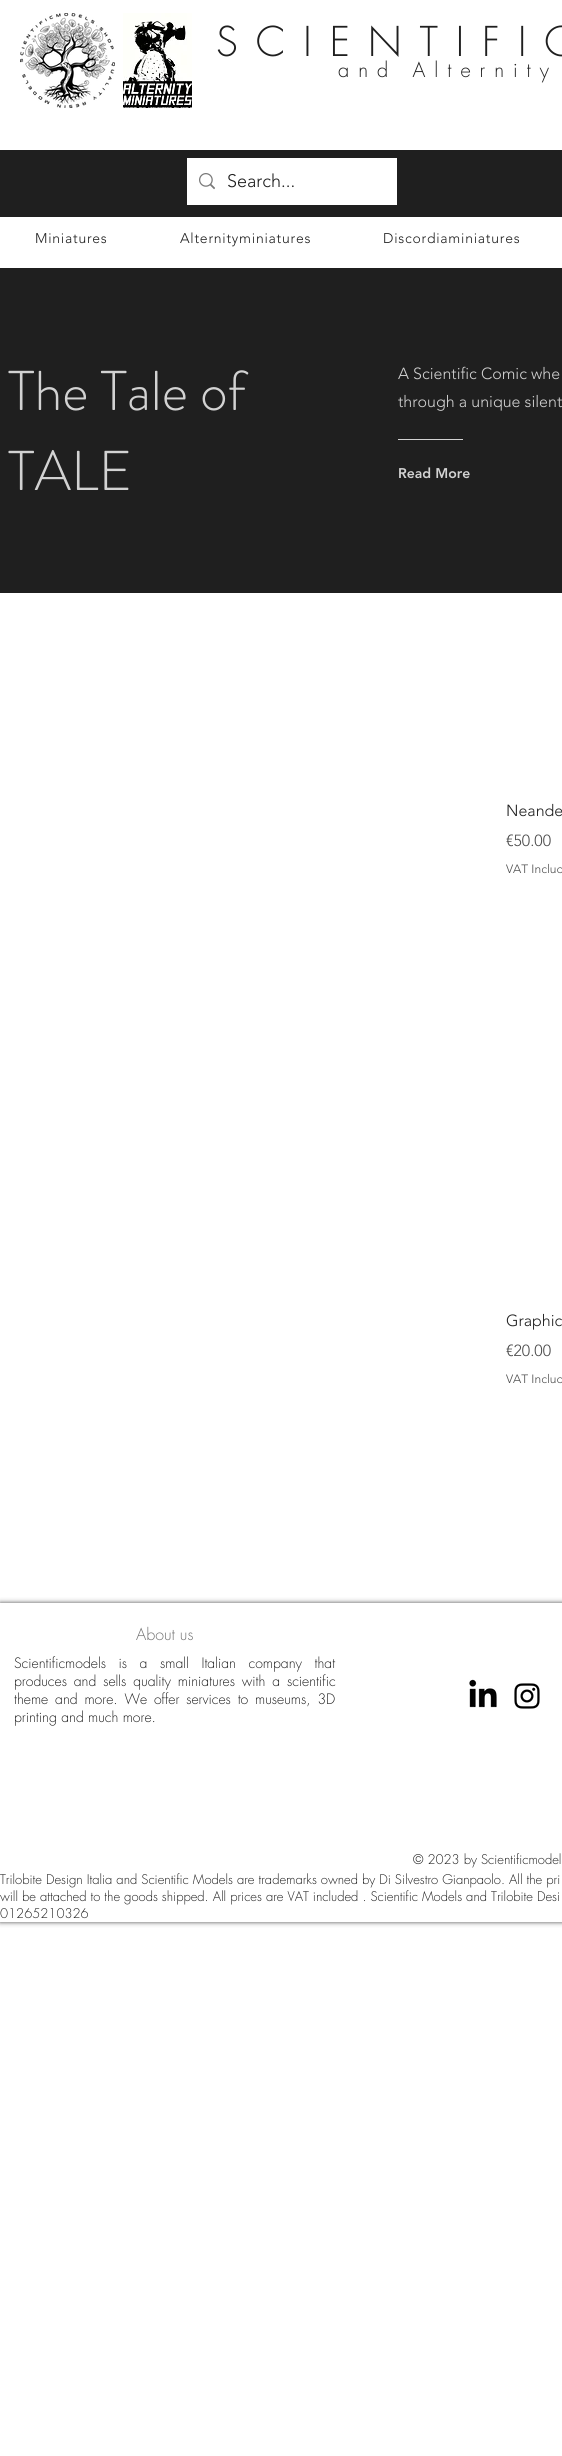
#include <cairo.h>
#include <math.h>
#include <stddef.h>


static void set_color(cairo_t *cr, unsigned color) {
    cairo_set_source_rgb(cr, (color >> 16) / 255.0, (color >> 8 & 255) / 255.0, (color & 255) / 255.0);
}

static void draw_text(cairo_t *cr, double x, double y, const char *s, const char *family, double size, int italic, int bold, unsigned color) {
    cairo_select_font_face(cr, family, italic ? CAIRO_FONT_SLANT_ITALIC : CAIRO_FONT_SLANT_NORMAL,
        bold ? CAIRO_FONT_WEIGHT_BOLD : CAIRO_FONT_WEIGHT_NORMAL);
    cairo_set_font_size(cr, size);
    set_color(cr, color);
    cairo_move_to(cr, x, y);
    cairo_show_text(cr, s);
}

static void draw_spaced(cairo_t *cr, double x, double y, const char *s, double letter, double word) {
    cairo_move_to(cr, x, y);
    while (*s) {
        char ch[5] = {0};
        int n = 0;
        do ch[n++] = *s++; while ((*s & 0xC0) == 0x80);
        cairo_show_text(cr, ch);
        cairo_rel_move_to(cr, letter + word * (*ch == ' '), 0);
    }
}

static void fill_rect(cairo_t *cr, double x, double y, double w, double h, unsigned color) {
    set_color(cr, color);
    cairo_rectangle(cr, x, y, w, h);
    cairo_fill(cr);
}

static void rounded_rect(cairo_t *cr, double x, double y, double w, double h, double r) {
    cairo_new_sub_path(cr);
    cairo_arc(cr, x + w - r, y + h - r, r, 0, M_PI / 2);
    cairo_arc(cr, x + r, y + h - r, r, M_PI / 2, M_PI);
    cairo_arc(cr, x + r, y + r, r, M_PI, 1.5 * M_PI);
    cairo_arc(cr, x + w - r, y + r, r, 1.5 * M_PI, 2 * M_PI);
    cairo_close_path(cr);
}

static void draw_shadow(cairo_t *cr, double x, double y, double w, double h, double r, double blur, double alpha) {
    cairo_push_group_with_content(cr, CAIRO_CONTENT_ALPHA);
    cairo_set_operator(cr, CAIRO_OPERATOR_SOURCE);
    for (int i = 15; i >= -15 && fmin(w, h) + blur * i / 3 > 0; i -= 2) {
        double e = blur * i / 6;
        cairo_set_source_rgba(cr, 0, 0, 0, alpha * erfc((i - 1) / 8.5) / 2);
        rounded_rect(cr, x - e, y - e, w + 2 * e, h + 2 * e, fmax(0, fmin(r + e + blur * .6, fmin(w, h) / 2 + e)));
        cairo_fill(cr);
    }
    cairo_pattern_t *soft = cairo_pop_group(cr);
    cairo_mask(cr, soft);
    cairo_pattern_destroy(soft);
}

static void draw_image(cairo_t *cr, const char *path, double x, double y, double w, double h) {
    cairo_surface_t *image = cairo_image_surface_create_from_png(path);
    cairo_save(cr);
    cairo_set_source_surface(cr, image, x, y);
    cairo_rectangle(cr, x, y, w, h);
    cairo_fill(cr);
    cairo_restore(cr);
    cairo_surface_destroy(image);
}

int main(void) {
    cairo_surface_t *surface = cairo_image_surface_create(CAIRO_FORMAT_RGB24, 562, 2456);
    cairo_t *cr = cairo_create(surface);
    cairo_font_options_t *options = cairo_font_options_create();
    cairo_font_options_set_hint_metrics(options, CAIRO_HINT_METRICS_OFF);
    cairo_font_options_set_hint_style(options, CAIRO_HINT_STYLE_NONE);
    cairo_set_font_options(cr, options);
    cairo_set_miter_limit(cr, 4);
    set_color(cr, 0xFFFFFF);
    cairo_paint(cr);
    draw_image(cr, "assets/img1.png", 20, 13, 95, 95);
    draw_image(cr, "assets/img2.png", 123, 13, 69, 95);
    cairo_select_font_face(cr, "futura Light", CAIRO_FONT_SLANT_NORMAL, CAIRO_FONT_WEIGHT_NORMAL);
    cairo_set_font_size(cr, 40);
    set_color(cr, 0x1F1F1F);
    draw_spaced(cr, 216, 56, "SCIENTIFIC", 18, 0);
    cairo_set_font_size(cr, 20);
    draw_spaced(cr, 338, 77, "and Alternity", 9, 0);
    fill_rect(cr, 0, 150, 562, 67, 0x1F1F1F);
    fill_rect(cr, 187, 158, 210, 47, 0xFFFFFF);
    draw_image(cr, "assets/img3.png", 199, 173, 16, 17);
    draw_text(cr, 227, 187, "Search...", "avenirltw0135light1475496 Light", 18, 0, 0, 0x1F1F1F);
    cairo_set_font_size(cr, 14);
    draw_spaced(cr, 35, 243, "Miniatures", 0.75, 0);
    draw_spaced(cr, 180, 243, "Alternityminiatures", 0.75, 0);
    draw_spaced(cr, 383, 243, "Discordiaminiatures", 0.75, 0);
    fill_rect(cr, 0, 268, 562, 325, 0x1F1F1F);
    draw_text(cr, 8, 410, "The Tale of", "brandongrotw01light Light", 56, 0, 0, 0xD2D2D2);
    draw_text(cr, 8, 490, "TALE", "brandongrotw01light Light", 56, 0, 0, 0xD2D2D2);
    draw_text(cr, 398, 379, "A Scientific Comic whe", "avenirltw0135light1475496 Light", 16, 0, 0, 0xD2D2D2);
    draw_text(cr, 398, 407, "through a unique silent", "avenirltw0135light1475496 Light", 16, 0, 0, 0xD2D2D2);
    fill_rect(cr, 398, 439, 65, 1, 0xD2D2D2);
    draw_text(cr, 398, 478, "Read More", "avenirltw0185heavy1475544 Black", 14, 0, 0, 0xD2D2D2);
    draw_text(cr, 506, 816, "Neande", "avenirltw0135light1475496 Light", 16, 0, 0, 0x1F1F1F);
    draw_text(cr, 506, 846, "€50.00", "avenirltw0135light1475496 Light", 16, 0, 0, 0x4C4C4C);
    draw_text(cr, 506, 873, "VAT Includ", "avenirltw0135light1475496 Light", 12, 0, 0, 0x4C4C4C);
    draw_text(cr, 506, 1326, "Graphic", "avenirltw0135light1475496 Light", 16, 0, 0, 0x1F1F1F);
    draw_text(cr, 506, 1356, "€20.00", "avenirltw0135light1475496 Light", 16, 0, 0, 0x4C4C4C);
    draw_text(cr, 506, 1383, "VAT Includ", "avenirltw0135light1475496 Light", 12, 0, 0, 0x4C4C4C);
    cairo_save(cr);
    cairo_set_fill_rule(cr, CAIRO_FILL_RULE_EVEN_ODD);
    cairo_new_path(cr);
    cairo_move_to(cr, 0, 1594);
    cairo_line_to(cr, 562, 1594);
    cairo_line_to(cr, 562, 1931);
    cairo_line_to(cr, 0, 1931);
    cairo_close_path(cr);
    cairo_move_to(cr, 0, 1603);
    cairo_line_to(cr, 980, 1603);
    cairo_line_to(cr, 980, 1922);
    cairo_line_to(cr, 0, 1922);
    cairo_close_path(cr);
    cairo_clip(cr);
    set_color(cr, 0x000000);
    draw_shadow(cr, 0, 1603, 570, 319, 0, 2.5, 0.7);
    cairo_restore(cr);
    draw_text(cr, 136, 1640, "About us", "futura Light", 16, 0, 0, 0x737373);
    cairo_set_font_size(cr, 14);
    set_color(cr, 0x1F1F1F);
    draw_spaced(cr, 14, 1668, "Scientificmodels is a small Italian company that", 0, 8.25);
    draw_spaced(cr, 14, 1686, "produces and sells quality miniatures with a scientific", 0, 2.5);
    draw_spaced(cr, 14, 1704, "theme and more. We offer services to museums, 3D", 0, 2.5);
    draw_text(cr, 14, 1722, "printing and much more.", "futura Light", 14, 0, 0, 0x1F1F1F);
    draw_image(cr, "assets/img4.png", 469, 1679, 28, 29);
    draw_image(cr, "assets/img5.png", 514, 1683, 26, 26);
    draw_text(cr, 413, 1864, "© 2023 by Scientificmodel", "futura Light", 13, 0, 0, 0x1F1F1F);
    draw_text(cr, 0, 1884, "Trilobite Design Italia and Scientific Models are trademarks owned by Di Silvestro Gianpaolo. All the pri", "futura Light", 13, 0, 0, 0x1F1F1F);
    draw_text(cr, 0, 1901, "will be attached to the goods shipped. All prices are VAT included . Scientific Models and Trilobite Desi", "futura Light", 13, 0, 0, 0x1F1F1F);
    draw_text(cr, 0, 1918, "01265210326", "futura Light", 13, 0, 0, 0x1F1F1F);
    cairo_surface_write_to_png(surface, "output.png");
    cairo_font_options_destroy(options);
    cairo_destroy(cr);
    cairo_surface_destroy(surface);
    return 0;
}
